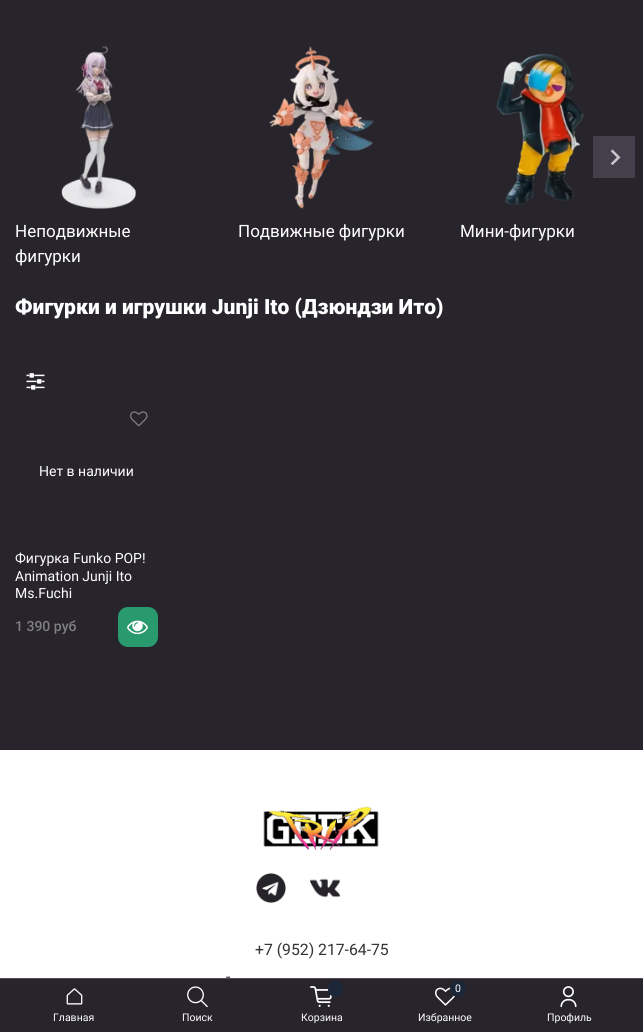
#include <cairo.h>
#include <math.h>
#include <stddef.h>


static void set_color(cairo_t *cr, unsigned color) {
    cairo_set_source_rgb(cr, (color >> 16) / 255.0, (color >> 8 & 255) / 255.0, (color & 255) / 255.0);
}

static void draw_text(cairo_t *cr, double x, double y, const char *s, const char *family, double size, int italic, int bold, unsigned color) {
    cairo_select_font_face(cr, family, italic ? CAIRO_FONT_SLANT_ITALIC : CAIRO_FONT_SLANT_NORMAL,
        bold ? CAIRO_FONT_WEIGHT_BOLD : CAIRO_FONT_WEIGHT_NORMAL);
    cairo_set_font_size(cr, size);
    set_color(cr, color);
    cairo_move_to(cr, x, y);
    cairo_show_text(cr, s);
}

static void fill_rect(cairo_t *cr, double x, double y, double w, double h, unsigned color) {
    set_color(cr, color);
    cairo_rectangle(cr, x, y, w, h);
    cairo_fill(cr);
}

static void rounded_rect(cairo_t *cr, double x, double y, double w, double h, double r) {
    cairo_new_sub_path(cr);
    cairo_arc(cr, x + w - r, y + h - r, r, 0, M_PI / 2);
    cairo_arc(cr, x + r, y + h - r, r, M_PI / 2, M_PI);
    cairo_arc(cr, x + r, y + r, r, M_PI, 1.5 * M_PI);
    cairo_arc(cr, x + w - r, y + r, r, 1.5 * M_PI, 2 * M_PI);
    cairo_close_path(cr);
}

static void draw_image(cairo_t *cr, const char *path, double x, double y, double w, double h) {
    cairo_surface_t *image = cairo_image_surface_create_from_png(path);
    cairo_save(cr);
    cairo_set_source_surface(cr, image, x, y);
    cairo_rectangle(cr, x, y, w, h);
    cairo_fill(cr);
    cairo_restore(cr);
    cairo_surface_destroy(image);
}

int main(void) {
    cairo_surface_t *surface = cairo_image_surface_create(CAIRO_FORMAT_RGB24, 643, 1032);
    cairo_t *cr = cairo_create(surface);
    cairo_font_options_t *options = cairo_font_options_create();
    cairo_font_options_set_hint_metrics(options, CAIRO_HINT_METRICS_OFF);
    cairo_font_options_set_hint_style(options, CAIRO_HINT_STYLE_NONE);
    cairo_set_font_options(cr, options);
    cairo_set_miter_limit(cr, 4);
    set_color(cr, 0x27242B);
    cairo_paint(cr);
    fill_rect(cr, 593, 136, 42, 42, 0x443F4B);
    draw_image(cr, "assets/img1.png", 610, 149, 11, 16);
    draw_image(cr, "assets/img2.png", 61, 46, 75, 163);
    draw_text(cr, 15, 237, "Неподвижные", "Roboto", 17, 0, 0, 0xFFFFFF);
    draw_text(cr, 15, 262, "фигурки", "Roboto", 17, 0, 0, 0xFFFFFF);
    draw_image(cr, "assets/img3.png", 269, 46, 105, 163);
    draw_text(cr, 238, 237, "Подвижные фигурки", "Roboto", 17, 0, 0, 0xFFFFFF);
    draw_image(cr, "assets/img4.png", 496, 53, 88, 152);
    draw_text(cr, 460, 237, "Мини-фигурки", "Roboto", 17, 0, 0, 0xFFFFFF);
    draw_text(cr, 15, 314, "Фигурки и игрушки Junji Ito (Дзюндзи Ито)", "Roboto Black", 21, 0, 0, 0xFFFFFF);
    draw_image(cr, "assets/img5.png", 26, 373, 19, 17);
    draw_image(cr, "assets/img6.png", 130, 411, 18, 16);
    draw_text(cr, 39, 476, "Нет в наличии", "Roboto", 14, 0, 0, 0xFFFFFF);
    draw_text(cr, 15, 563, "Фигурка Funko POP!", "Roboto", 14, 0, 0, 0xFFFFFF);
    draw_text(cr, 15, 581, "Animation Junji Ito", "Roboto", 14, 0, 0, 0xFFFFFF);
    draw_text(cr, 15, 598, "Ms.Fuchi", "Roboto", 14, 0, 0, 0xFFFFFF);
    draw_text(cr, 15, 631, "1 390 руб", "Roboto Medium", 14, 0, 0, 0x808080);
    set_color(cr, 0x299A6D);
    rounded_rect(cr, 118, 607, 40, 40, 10);
    cairo_fill(cr);
    draw_image(cr, "assets/img7.png", 127, 620, 21, 15);
    fill_rect(cr, 0, 750, 643, 228, 0xFFFFFF);
    draw_image(cr, "assets/img8.png", 263, 806, 116, 45);
    draw_image(cr, "assets/img9.png", 256, 873, 30, 30);
    draw_image(cr, "assets/img10.png", 310, 878, 30, 20);
    draw_text(cr, 255, 955, "+7 (952) 217-64-75", "Roboto", 15.75, 0, 0, 0x333333);
    draw_text(cr, 226, 982, "-", "Roboto", 15.75, 0, 0, 0x333333);
    fill_rect(cr, 0, 978, 643, 1, 0x514A59);
    draw_image(cr, "assets/img11.png", 66, 988, 17, 17);
    draw_text(cr, 53, 1021, "Главная", "Roboto", 10.5, 0, 0, 0xFFFFFF);
    draw_image(cr, "assets/img12.png", 187, 986, 21, 22);
    draw_text(cr, 182, 1021, "Поиск", "Roboto", 10.5, 0, 0, 0xFFFFFF);
    draw_image(cr, "assets/img13.png", 310, 986, 22, 21);
    set_color(cr, 0x1B2738);
    rounded_rect(cr, 328, 981, 15, 16, 7.5);
    cairo_fill(cr);
    draw_text(cr, 301, 1021, "Корзина", "Roboto", 10.5, 0, 0, 0xFFFFFF);
    draw_image(cr, "assets/img14.png", 435, 987, 20, 19);
    set_color(cr, 0x1B2738);
    cairo_arc(cr, 458, 989, 8, 0, 2 * M_PI);
    cairo_fill(cr);
    draw_text(cr, 455, 992, "0", "Roboto", 10.5, 0, 0, 0xFFFFFF);
    draw_text(cr, 418, 1021, "Избранное", "Roboto", 10.5, 0, 0, 0xFFFFFF);
    draw_image(cr, "assets/img15.png", 560, 986, 17, 22);
    draw_text(cr, 547, 1021, "Профиль", "Roboto", 10.5, 0, 0, 0xFFFFFF);
    cairo_surface_write_to_png(surface, "output.png");
    cairo_font_options_destroy(options);
    cairo_destroy(cr);
    cairo_surface_destroy(surface);
    return 0;
}
